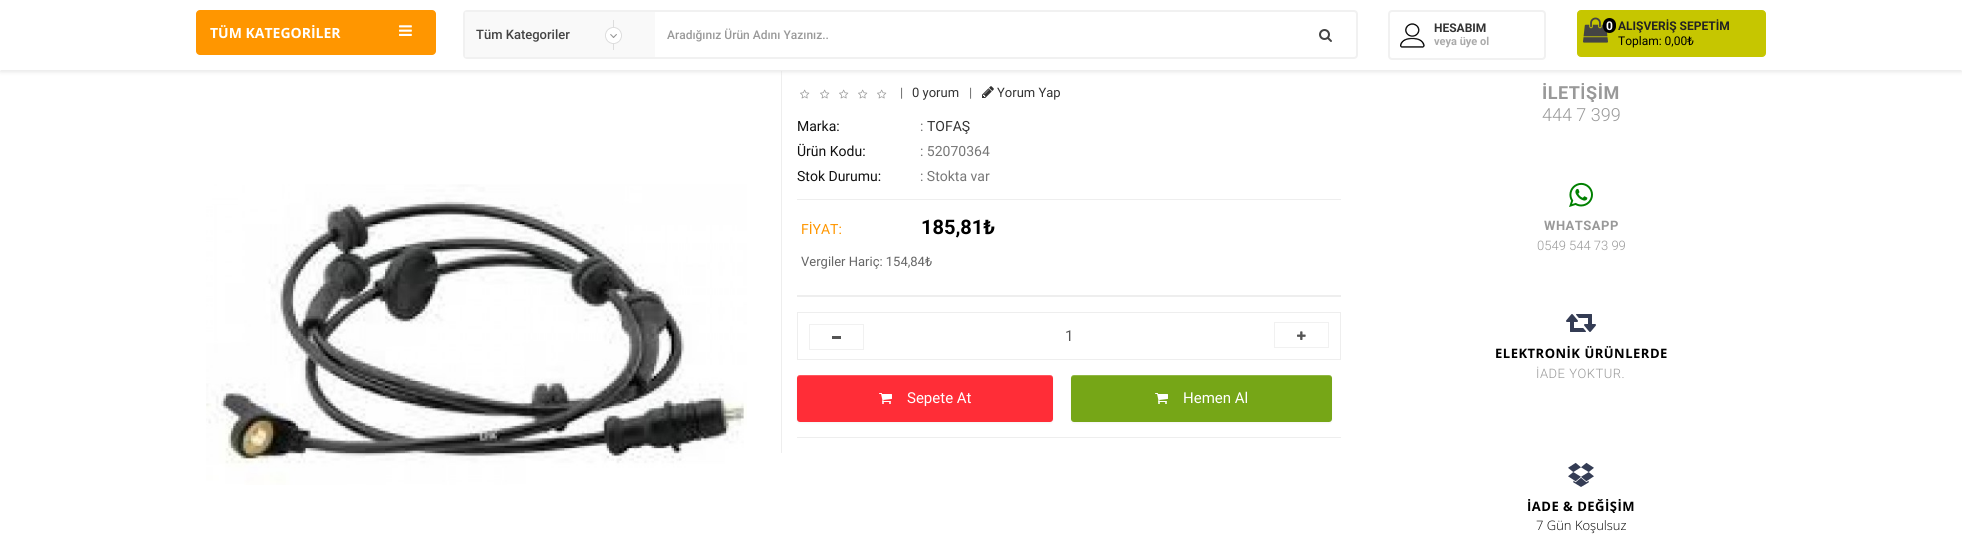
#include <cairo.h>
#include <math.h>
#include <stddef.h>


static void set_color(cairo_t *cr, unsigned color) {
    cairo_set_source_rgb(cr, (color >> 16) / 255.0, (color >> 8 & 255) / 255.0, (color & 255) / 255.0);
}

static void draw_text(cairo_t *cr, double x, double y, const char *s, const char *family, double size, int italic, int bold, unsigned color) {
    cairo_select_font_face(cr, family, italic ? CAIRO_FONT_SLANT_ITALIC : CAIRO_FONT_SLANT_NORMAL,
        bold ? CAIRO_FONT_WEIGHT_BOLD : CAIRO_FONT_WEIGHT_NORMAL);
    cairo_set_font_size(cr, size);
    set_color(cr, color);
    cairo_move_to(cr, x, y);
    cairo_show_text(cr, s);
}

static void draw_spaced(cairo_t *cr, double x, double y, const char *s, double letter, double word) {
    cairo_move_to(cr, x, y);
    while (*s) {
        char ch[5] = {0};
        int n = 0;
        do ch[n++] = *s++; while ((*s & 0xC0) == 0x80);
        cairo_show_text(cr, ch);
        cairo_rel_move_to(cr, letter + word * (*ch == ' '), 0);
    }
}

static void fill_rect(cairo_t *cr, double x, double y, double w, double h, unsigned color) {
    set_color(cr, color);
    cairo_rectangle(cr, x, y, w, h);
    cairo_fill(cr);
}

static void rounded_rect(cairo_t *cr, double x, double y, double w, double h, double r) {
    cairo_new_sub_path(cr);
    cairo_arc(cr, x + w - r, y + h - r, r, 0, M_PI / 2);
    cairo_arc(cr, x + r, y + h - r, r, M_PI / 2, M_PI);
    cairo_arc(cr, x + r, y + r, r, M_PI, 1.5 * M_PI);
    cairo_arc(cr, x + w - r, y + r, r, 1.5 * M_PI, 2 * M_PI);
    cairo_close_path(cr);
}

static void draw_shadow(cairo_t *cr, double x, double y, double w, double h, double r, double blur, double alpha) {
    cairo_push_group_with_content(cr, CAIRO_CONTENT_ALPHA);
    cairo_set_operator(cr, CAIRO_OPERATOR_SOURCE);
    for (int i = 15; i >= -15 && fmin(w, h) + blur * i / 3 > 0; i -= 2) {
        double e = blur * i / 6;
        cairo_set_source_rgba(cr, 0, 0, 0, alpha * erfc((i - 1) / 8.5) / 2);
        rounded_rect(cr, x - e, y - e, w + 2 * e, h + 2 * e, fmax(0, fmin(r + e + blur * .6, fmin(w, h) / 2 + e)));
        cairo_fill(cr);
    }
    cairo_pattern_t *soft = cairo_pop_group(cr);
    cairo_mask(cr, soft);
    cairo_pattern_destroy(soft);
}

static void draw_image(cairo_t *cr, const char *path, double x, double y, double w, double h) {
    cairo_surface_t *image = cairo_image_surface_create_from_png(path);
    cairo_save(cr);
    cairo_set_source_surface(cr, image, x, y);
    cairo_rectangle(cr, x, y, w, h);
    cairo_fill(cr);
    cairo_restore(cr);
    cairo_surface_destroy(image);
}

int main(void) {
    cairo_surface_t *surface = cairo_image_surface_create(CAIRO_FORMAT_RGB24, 1962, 549);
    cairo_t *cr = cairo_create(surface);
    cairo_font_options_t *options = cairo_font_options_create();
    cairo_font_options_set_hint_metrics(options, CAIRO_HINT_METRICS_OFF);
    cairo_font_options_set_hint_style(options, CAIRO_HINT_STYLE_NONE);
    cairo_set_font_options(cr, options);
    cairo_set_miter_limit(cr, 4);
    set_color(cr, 0xFFFFFF);
    cairo_paint(cr);
    fill_rect(cr, 781, 71, 1, 382, 0xEEEEEE);
    set_color(cr, 0xDDDDDD);
    draw_shadow(cr, 0, 0, 1962, 71, 0, 2.5, 1);
    fill_rect(cr, 0, 0, 1962, 71, 0xFFFFFF);
    set_color(cr, 0xEEEEEE);
    cairo_new_path(cr);
    cairo_move_to(cr, 1962, 71);
    cairo_line_to(cr, 0, 71);
    cairo_line_to(cr, 1, 70);
    cairo_line_to(cr, 1961, 70);
    cairo_close_path(cr);
    cairo_fill(cr);
    set_color(cr, 0xFF9600);
    rounded_rect(cr, 196, 10, 240, 45, 4);
    cairo_fill(cr);
    draw_text(cr, 210, 38, "TÜM KATEGORİLER", "Open Sans", 14, 0, 1, 0xFFFFFF);
    draw_image(cr, "assets/img1.png", 399, 25, 13, 11);
    rounded_rect(cr, 464, 11, 893, 47, 3);
    set_color(cr, 0xF1F1F1);
    cairo_stroke(cr);
    fill_rect(cr, 465, 12, 190, 45, 0xF9F9F9);
    draw_image(cr, "assets/img2.png", 605, 20, 17, 30);
    draw_text(cr, 476, 39, "Tüm Kategoriler", "Roboto Medium", 13, 0, 0, 0x444444);
    draw_text(cr, 667, 39, "Aradığınız Ürün Adını Yazınız..", "Roboto Medium", 12, 0, 0, 0x999999);
    draw_image(cr, "assets/img3.png", 1319, 29, 13, 13);
    draw_image(cr, "assets/img4.png", 1400, 23, 25, 25);
    rounded_rect(cr, 1389, 11, 156, 48, 3);
    set_color(cr, 0xF1F1F1);
    cairo_stroke(cr);
    draw_text(cr, 1434, 32, "HESABIM", "Roboto", 12, 0, 1, 0x333333);
    draw_text(cr, 1434, 45, "veya üye ol", "Roboto", 11, 0, 1, 0xAAAAAA);
    set_color(cr, 0xC6C600);
    rounded_rect(cr, 1577.5, 10.5, 188, 46, 3.5);
    cairo_fill_preserve(cr);
    cairo_set_line_width(cr, 1);
    cairo_stroke(cr);
    draw_image(cr, "assets/img5.png", 1583, 17, 25, 26);
    draw_text(cr, 1618, 30, "ALIŞVERİŞ SEPETİM", "Roboto", 12, 0, 1, 0x222222);
    set_color(cr, 0x000000);
    rounded_rect(cr, 1603, 18, 13, 15, 6.5);
    cairo_fill(cr);
    draw_text(cr, 1606, 30, "0", "Roboto", 12, 0, 1, 0xFFFFFF);
    draw_text(cr, 1618, 45, "Toplam: 0,00₺", "Roboto", 12, 0, 0, 0x000000);
    draw_image(cr, "assets/img6.png", 206, 184, 541, 301);
    draw_image(cr, "assets/img7.png", 800, 89, 10, 10);
    draw_image(cr, "assets/img7.png", 820, 89, 10, 10);
    draw_image(cr, "assets/img7.png", 839, 89, 10, 10);
    draw_image(cr, "assets/img7.png", 858, 89, 10, 10);
    draw_image(cr, "assets/img7.png", 877, 89, 10, 10);
    draw_text(cr, 900, 97, "|", "Roboto", 13, 0, 0, 0x666666);
    draw_text(cr, 912, 97, "0 yorum", "Roboto", 13, 0, 0, 0x333333);
    draw_text(cr, 969, 97, "|", "Roboto", 13, 0, 0, 0x666666);
    draw_image(cr, "assets/img8.png", 982, 86, 12, 12);
    draw_text(cr, 997, 97, "Yorum Yap", "Roboto", 13, 0, 0, 0x333333);
    fill_rect(cr, 797, 199, 544, 1, 0xEEEEEE);
    draw_text(cr, 797, 131, "Marka:", "Roboto", 14, 0, 0, 0x111111);
    draw_text(cr, 920, 131, ":", "Roboto", 14, 0, 0, 0x777777);
    draw_text(cr, 927, 131, "TOFAŞ", "Roboto", 14, 0, 0, 0x333333);
    draw_text(cr, 797, 156, "Ürün Kodu:", "Roboto", 14, 0, 0, 0x111111);
    draw_text(cr, 920, 156, ": 52070364", "Roboto", 14, 0, 0, 0x777777);
    draw_text(cr, 797, 181, "Stok Durumu:", "Roboto", 14, 0, 0, 0x111111);
    draw_text(cr, 920, 181, ": Stokta var", "Roboto", 14, 0, 0, 0x777777);
    draw_text(cr, 801, 234, "FİYAT:", "Roboto", 14, 0, 0, 0xFF9600);
    draw_text(cr, 921, 234, "185,81₺", "Roboto", 20, 0, 1, 0x000000);
    draw_text(cr, 801, 266, "Vergiler Hariç: 154,84₺", "Roboto", 13, 0, 0, 0x666666);
    fill_rect(cr, 797, 295, 544, 2, 0xEEEEEE);
    fill_rect(cr, 797, 437, 544, 1, 0xEEEEEE);
    cairo_rectangle(cr, 797.5, 312.5, 543, 47);
    cairo_stroke(cr);
    cairo_rectangle(cr, 809.5, 324.5, 54, 25);
    set_color(cr, 0xF1F1F1);
    cairo_stroke(cr);
    fill_rect(cr, 832, 336, 9, 3, 0x555555);
    draw_text(cr, 1065, 341, "1", "Roboto", 15, 0, 0, 0x555555);
    cairo_rectangle(cr, 1274.5, 322.5, 54, 25);
    set_color(cr, 0xF1F1F1);
    cairo_stroke(cr);
    draw_image(cr, "assets/img9.png", 1297, 331, 9, 9);
    set_color(cr, 0x000000);
    draw_shadow(cr, 797, 376, 256, 47, 3, 1, 0.05);
    set_color(cr, 0xFF2D37);
    rounded_rect(cr, 797, 375, 256, 47, 3);
    cairo_fill(cr);
    cairo_set_source_rgba(cr, 1, 1, 1, 0.2);
    cairo_new_path(cr);
    cairo_move_to(cr, 800, 376);
    cairo_line_to(cr, 1051, 376);
    cairo_line_to(cr, 1053, 377);
    cairo_line_to(cr, 1053, 379);
    cairo_curve_to(cr, 1053, 377, 1052, 375, 1050, 375);
    cairo_line_to(cr, 800, 375);
    cairo_curve_to(cr, 798, 375, 797, 377, 797, 379);
    cairo_curve_to(cr, 797, 377, 798, 376, 800, 376);
    cairo_close_path(cr);
    cairo_fill(cr);
    draw_image(cr, "assets/img10.png", 879, 393, 13, 11);
    draw_text(cr, 907, 403, "Sepete At", "Roboto", 15, 0, 0, 0xFFFFFF);
    set_color(cr, 0x000000);
    draw_shadow(cr, 1071, 376, 261, 47, 3, 1, 0.05);
    set_color(cr, 0x76A617);
    rounded_rect(cr, 1071, 375, 261, 47, 3);
    cairo_fill(cr);
    cairo_set_source_rgba(cr, 1, 1, 1, 0.2);
    cairo_new_path(cr);
    cairo_move_to(cr, 1074, 376);
    cairo_line_to(cr, 1330, 376);
    cairo_line_to(cr, 1332, 377);
    cairo_line_to(cr, 1332, 379);
    cairo_line_to(cr, 1332, 378);
    cairo_curve_to(cr, 1332, 376, 1331, 375, 1329, 375);
    cairo_line_to(cr, 1074, 375);
    cairo_curve_to(cr, 1072, 375, 1071, 376, 1071, 378);
    cairo_line_to(cr, 1071, 379);
    cairo_curve_to(cr, 1071, 377, 1072, 376, 1074, 376);
    cairo_close_path(cr);
    cairo_fill(cr);
    draw_image(cr, "assets/img11.png", 1155, 393, 13, 11);
    draw_text(cr, 1183, 403, "Hemen Al", "Roboto", 15, 0, 0, 0xFFFFFF);
    cairo_save(cr);
    cairo_rectangle(cr, 1542, 83, 78, 19);
    cairo_clip(cr);
    cairo_select_font_face(cr, "Roboto", CAIRO_FONT_SLANT_NORMAL, CAIRO_FONT_WEIGHT_BOLD);
    cairo_set_font_size(cr, 18);
    set_color(cr, 0x999999);
    draw_spaced(cr, 1542, 99, "İLETİŞİM", 0.5, 0);
    cairo_restore(cr);
    draw_text(cr, 1542, 121, "444 7 399", "Roboto Light", 18, 0, 0, 0x999999);
    draw_image(cr, "assets/img12.png", 1569, 182, 24, 25);
    cairo_select_font_face(cr, "Roboto", CAIRO_FONT_SLANT_NORMAL, CAIRO_FONT_WEIGHT_BOLD);
    cairo_set_font_size(cr, 13);
    draw_spaced(cr, 1544, 230, "WHATSAPP", 0.5, 0);
    draw_text(cr, 1537, 250, "0549 544 73 99", "Roboto Light", 13, 0, 0, 0x999999);
    draw_image(cr, "assets/img13.png", 1566, 314, 30, 18);
    cairo_select_font_face(cr, "Open Sans", CAIRO_FONT_SLANT_NORMAL, CAIRO_FONT_WEIGHT_BOLD);
    set_color(cr, 0x000000);
    draw_spaced(cr, 1495, 358, "ELEKTRONİK ÜRÜNLERDE", 0.5, 0);
    cairo_select_font_face(cr, "Roboto Light", CAIRO_FONT_SLANT_NORMAL, CAIRO_FONT_WEIGHT_NORMAL);
    set_color(cr, 0x999999);
    draw_spaced(cr, 1536, 378, "İADE YOKTUR.", 0.5, 0);
    draw_image(cr, "assets/img14.png", 1568, 462, 26, 25);
    cairo_save(cr);
    cairo_rectangle(cr, 1527, 499, 108, 14);
    cairo_clip(cr);
    cairo_select_font_face(cr, "Open Sans", CAIRO_FONT_SLANT_NORMAL, CAIRO_FONT_WEIGHT_BOLD);
    set_color(cr, 0x000000);
    draw_spaced(cr, 1527, 511, "İADE & DEĞİŞİM", 0.5, 0);
    cairo_restore(cr);
    draw_text(cr, 1536, 530, "7 Gün Koşulsuz", "Open Sans Light", 13, 0, 0, 0x000000);
    cairo_surface_write_to_png(surface, "output.png");
    cairo_font_options_destroy(options);
    cairo_destroy(cr);
    cairo_surface_destroy(surface);
    return 0;
}
